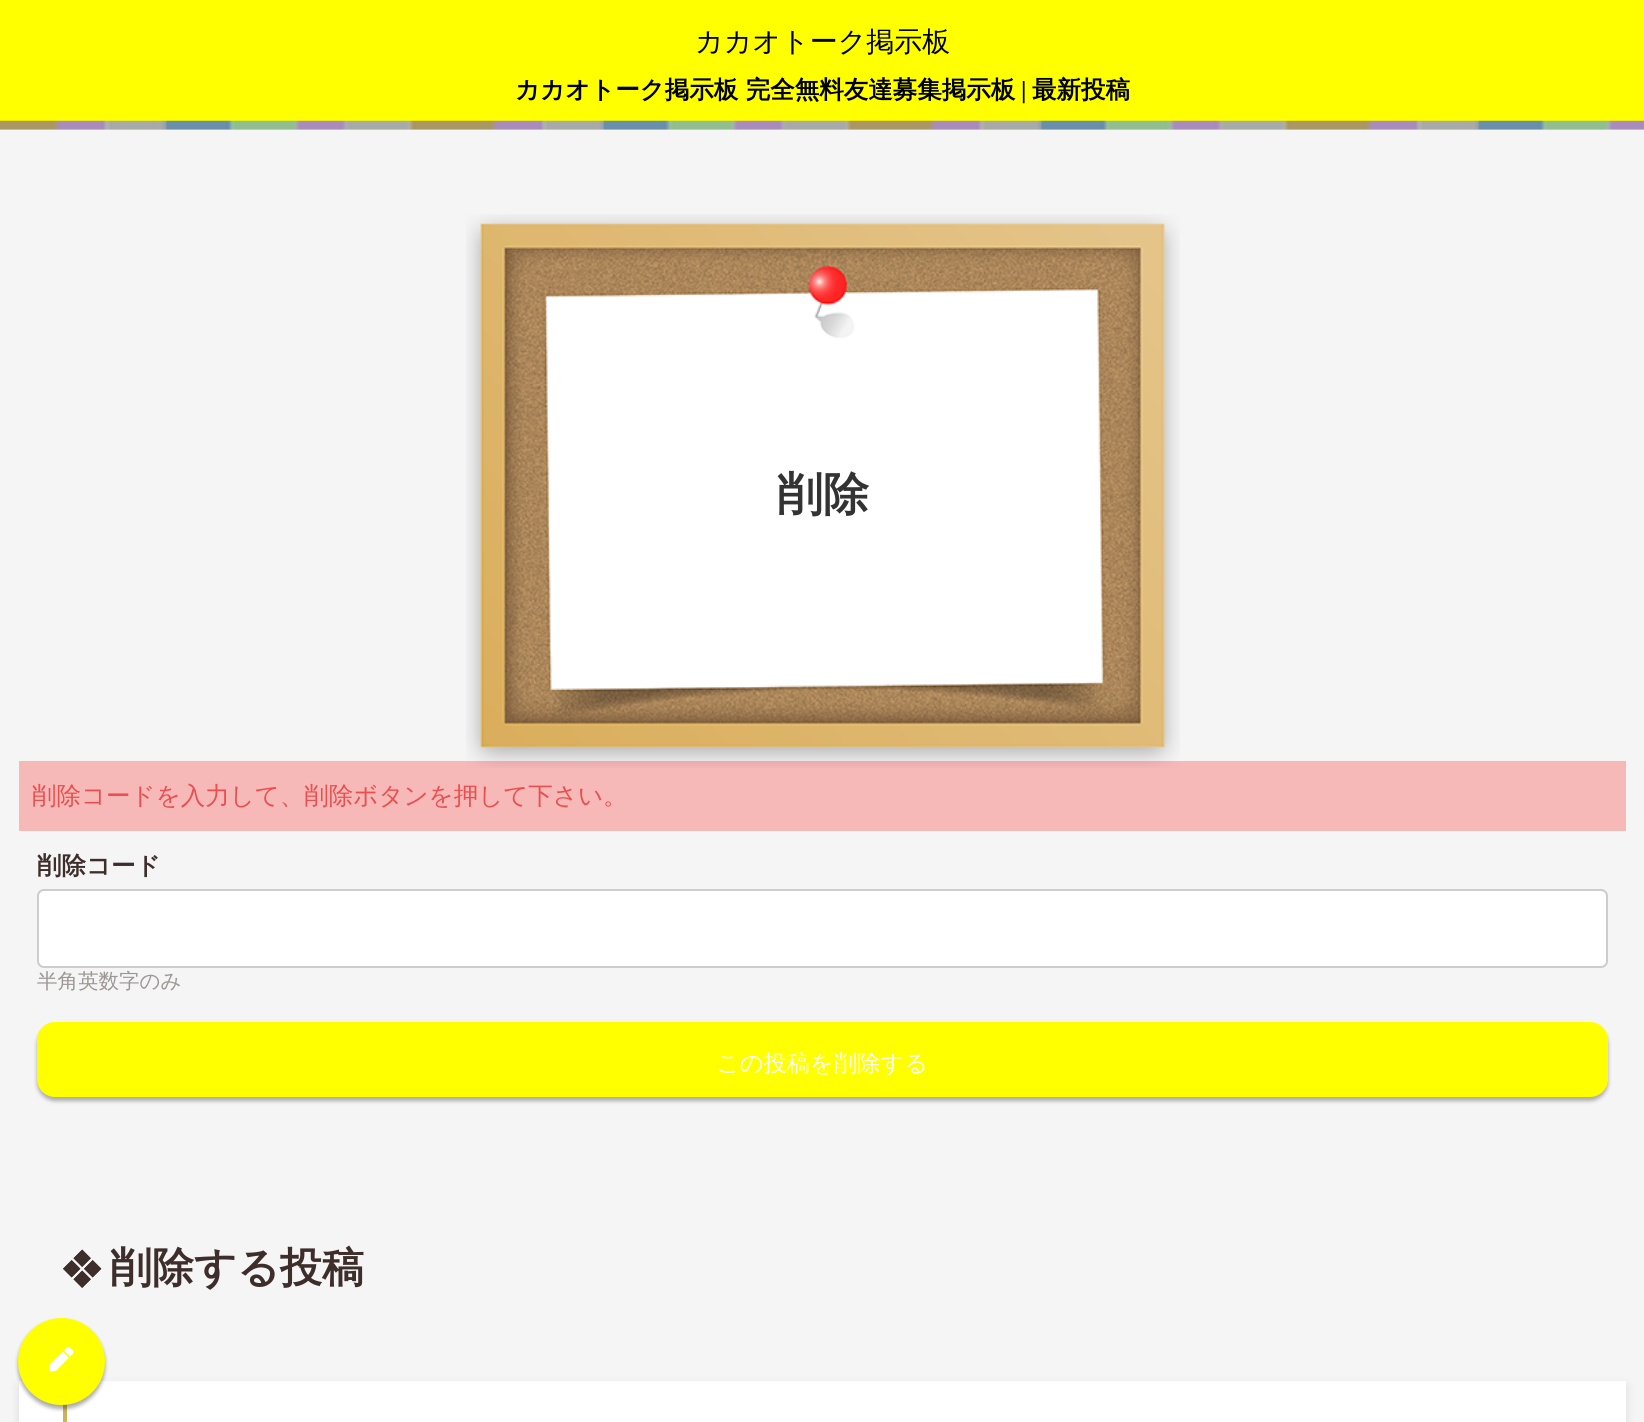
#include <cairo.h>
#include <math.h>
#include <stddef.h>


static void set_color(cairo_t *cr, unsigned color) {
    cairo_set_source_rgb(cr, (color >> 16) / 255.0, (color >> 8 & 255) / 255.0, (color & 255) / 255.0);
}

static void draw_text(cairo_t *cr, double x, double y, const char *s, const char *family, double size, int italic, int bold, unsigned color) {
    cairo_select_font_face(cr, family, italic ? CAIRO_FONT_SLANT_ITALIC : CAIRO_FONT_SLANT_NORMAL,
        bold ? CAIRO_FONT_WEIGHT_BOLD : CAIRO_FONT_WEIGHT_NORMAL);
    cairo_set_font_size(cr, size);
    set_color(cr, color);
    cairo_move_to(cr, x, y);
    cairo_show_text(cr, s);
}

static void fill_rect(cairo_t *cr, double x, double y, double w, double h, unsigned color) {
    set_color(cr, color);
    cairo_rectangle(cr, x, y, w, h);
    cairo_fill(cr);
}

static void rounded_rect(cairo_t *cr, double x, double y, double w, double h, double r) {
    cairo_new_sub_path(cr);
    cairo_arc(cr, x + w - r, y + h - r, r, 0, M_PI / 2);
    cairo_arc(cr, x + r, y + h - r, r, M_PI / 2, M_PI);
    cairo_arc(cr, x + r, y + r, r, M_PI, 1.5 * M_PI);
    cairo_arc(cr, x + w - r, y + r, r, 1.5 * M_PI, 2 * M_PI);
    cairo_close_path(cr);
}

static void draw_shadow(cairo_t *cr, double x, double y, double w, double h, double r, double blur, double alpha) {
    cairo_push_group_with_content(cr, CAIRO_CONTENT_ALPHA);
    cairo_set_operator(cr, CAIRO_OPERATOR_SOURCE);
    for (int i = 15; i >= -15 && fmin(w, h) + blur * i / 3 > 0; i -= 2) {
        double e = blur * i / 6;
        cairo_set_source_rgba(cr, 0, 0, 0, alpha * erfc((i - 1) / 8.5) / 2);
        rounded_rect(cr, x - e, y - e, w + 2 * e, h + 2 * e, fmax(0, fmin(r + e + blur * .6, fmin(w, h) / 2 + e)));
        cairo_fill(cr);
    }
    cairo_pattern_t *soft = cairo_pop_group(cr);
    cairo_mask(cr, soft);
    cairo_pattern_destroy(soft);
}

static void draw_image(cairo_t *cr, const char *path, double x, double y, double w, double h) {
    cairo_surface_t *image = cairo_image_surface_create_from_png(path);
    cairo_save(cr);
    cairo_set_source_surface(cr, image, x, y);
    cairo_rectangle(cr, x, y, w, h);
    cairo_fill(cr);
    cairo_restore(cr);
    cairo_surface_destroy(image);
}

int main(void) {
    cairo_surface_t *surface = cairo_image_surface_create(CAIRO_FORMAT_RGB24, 1644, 1422);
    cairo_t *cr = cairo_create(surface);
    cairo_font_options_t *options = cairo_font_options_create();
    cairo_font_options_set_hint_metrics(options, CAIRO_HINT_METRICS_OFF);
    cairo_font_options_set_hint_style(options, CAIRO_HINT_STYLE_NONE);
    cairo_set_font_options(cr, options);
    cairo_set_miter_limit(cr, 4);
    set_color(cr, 0xF5F5F5);
    cairo_paint(cr);
    fill_rect(cr, 0, 0, 1644, 130, 0xFFFF00);
    draw_image(cr, "assets/img1.png", 0, 120, 1644, 10);
    draw_text(cr, 695, 51, "カカオトーク掲示板", "WenQuanYi Zen Hei Medium", 28, 0, 0, 0x000000);
    draw_text(cr, 515, 98, "カカオトーク掲示板 完全無料友達募集掲示板", "WenQuanYi Zen Hei", 24.5, 0, 1, 0x000000);
    draw_text(cr, 1021, 98, "|", "Liberation Serif", 24.5, 0, 1, 0x000000);
    draw_text(cr, 1032, 98, "最新投稿", "WenQuanYi Zen Hei", 24.5, 0, 1, 0x000000);
    fill_rect(cr, 19, 761, 1607, 70, 0xF7B8B8);
    draw_image(cr, "assets/img2.png", 466, 214, 714, 554);
    draw_text(cr, 777, 510, "削除", "WenQuanYi Zen Hei", 46, 0, 1, 0x333333);
    draw_text(cr, 32, 804, "削除コードを入力して、削除ボタンを押して下さい。", "WenQuanYi Zen Hei Medium", 24.5, 0, 0, 0xEA4E4E);
    draw_text(cr, 37, 874, "削除コード", "WenQuanYi Zen Hei", 24.5, 0, 1, 0x3D2E2B);
    set_color(cr, 0xFFFFFF);
    rounded_rect(cr, 38, 890, 1569, 77, 6);
    cairo_fill_preserve(cr);
    set_color(cr, 0xCCCCCC);
    cairo_stroke(cr);
    draw_text(cr, 37, 988, "半角英数字のみ", "WenQuanYi Zen Hei Medium", 20.5, 0, 0, 0x9C9695);
    set_color(cr, 0x000000);
    draw_shadow(cr, 37, 1026, 1571, 75, 18, 2, 0.3);
    set_color(cr, 0xFFFF00);
    rounded_rect(cr, 37, 1022, 1571, 75, 18);
    cairo_fill(cr);
    draw_text(cr, 716, 1071, "この投稿を削除する", "WenQuanYi Zen Hei Medium", 23.25, 0, 0, 0xFFFFFF);
    draw_image(cr, "assets/img3.png", 63, 1249, 39, 39);
    draw_text(cr, 110, 1282, "削除する投稿", "WenQuanYi Zen Hei", 42, 0, 1, 0x3D2E2B);
    set_color(cr, 0x000000);
    draw_shadow(cr, 19, 1386, 1607, 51, 0, 5, 0.1);
    fill_rect(cr, 19, 1381, 1607, 41, 0xFFFFFF);
    fill_rect(cr, 63, 1404, 4, 18, 0xCEB459);
    set_color(cr, 0x000000);
    draw_shadow(cr, 18, 1321, 87, 88, 43.5, 2, 0.24);
    draw_shadow(cr, 18, 1321, 87, 88, 43.5, 2, 0.12);
    set_color(cr, 0xFFFF00);
    cairo_arc(cr, 61.5, 1361.5, 43.5, 0, 2 * M_PI);
    cairo_fill(cr);
    draw_image(cr, "assets/img4.png", 49, 1347, 25, 25);
    cairo_surface_write_to_png(surface, "output.png");
    cairo_font_options_destroy(options);
    cairo_destroy(cr);
    cairo_surface_destroy(surface);
    return 0;
}
